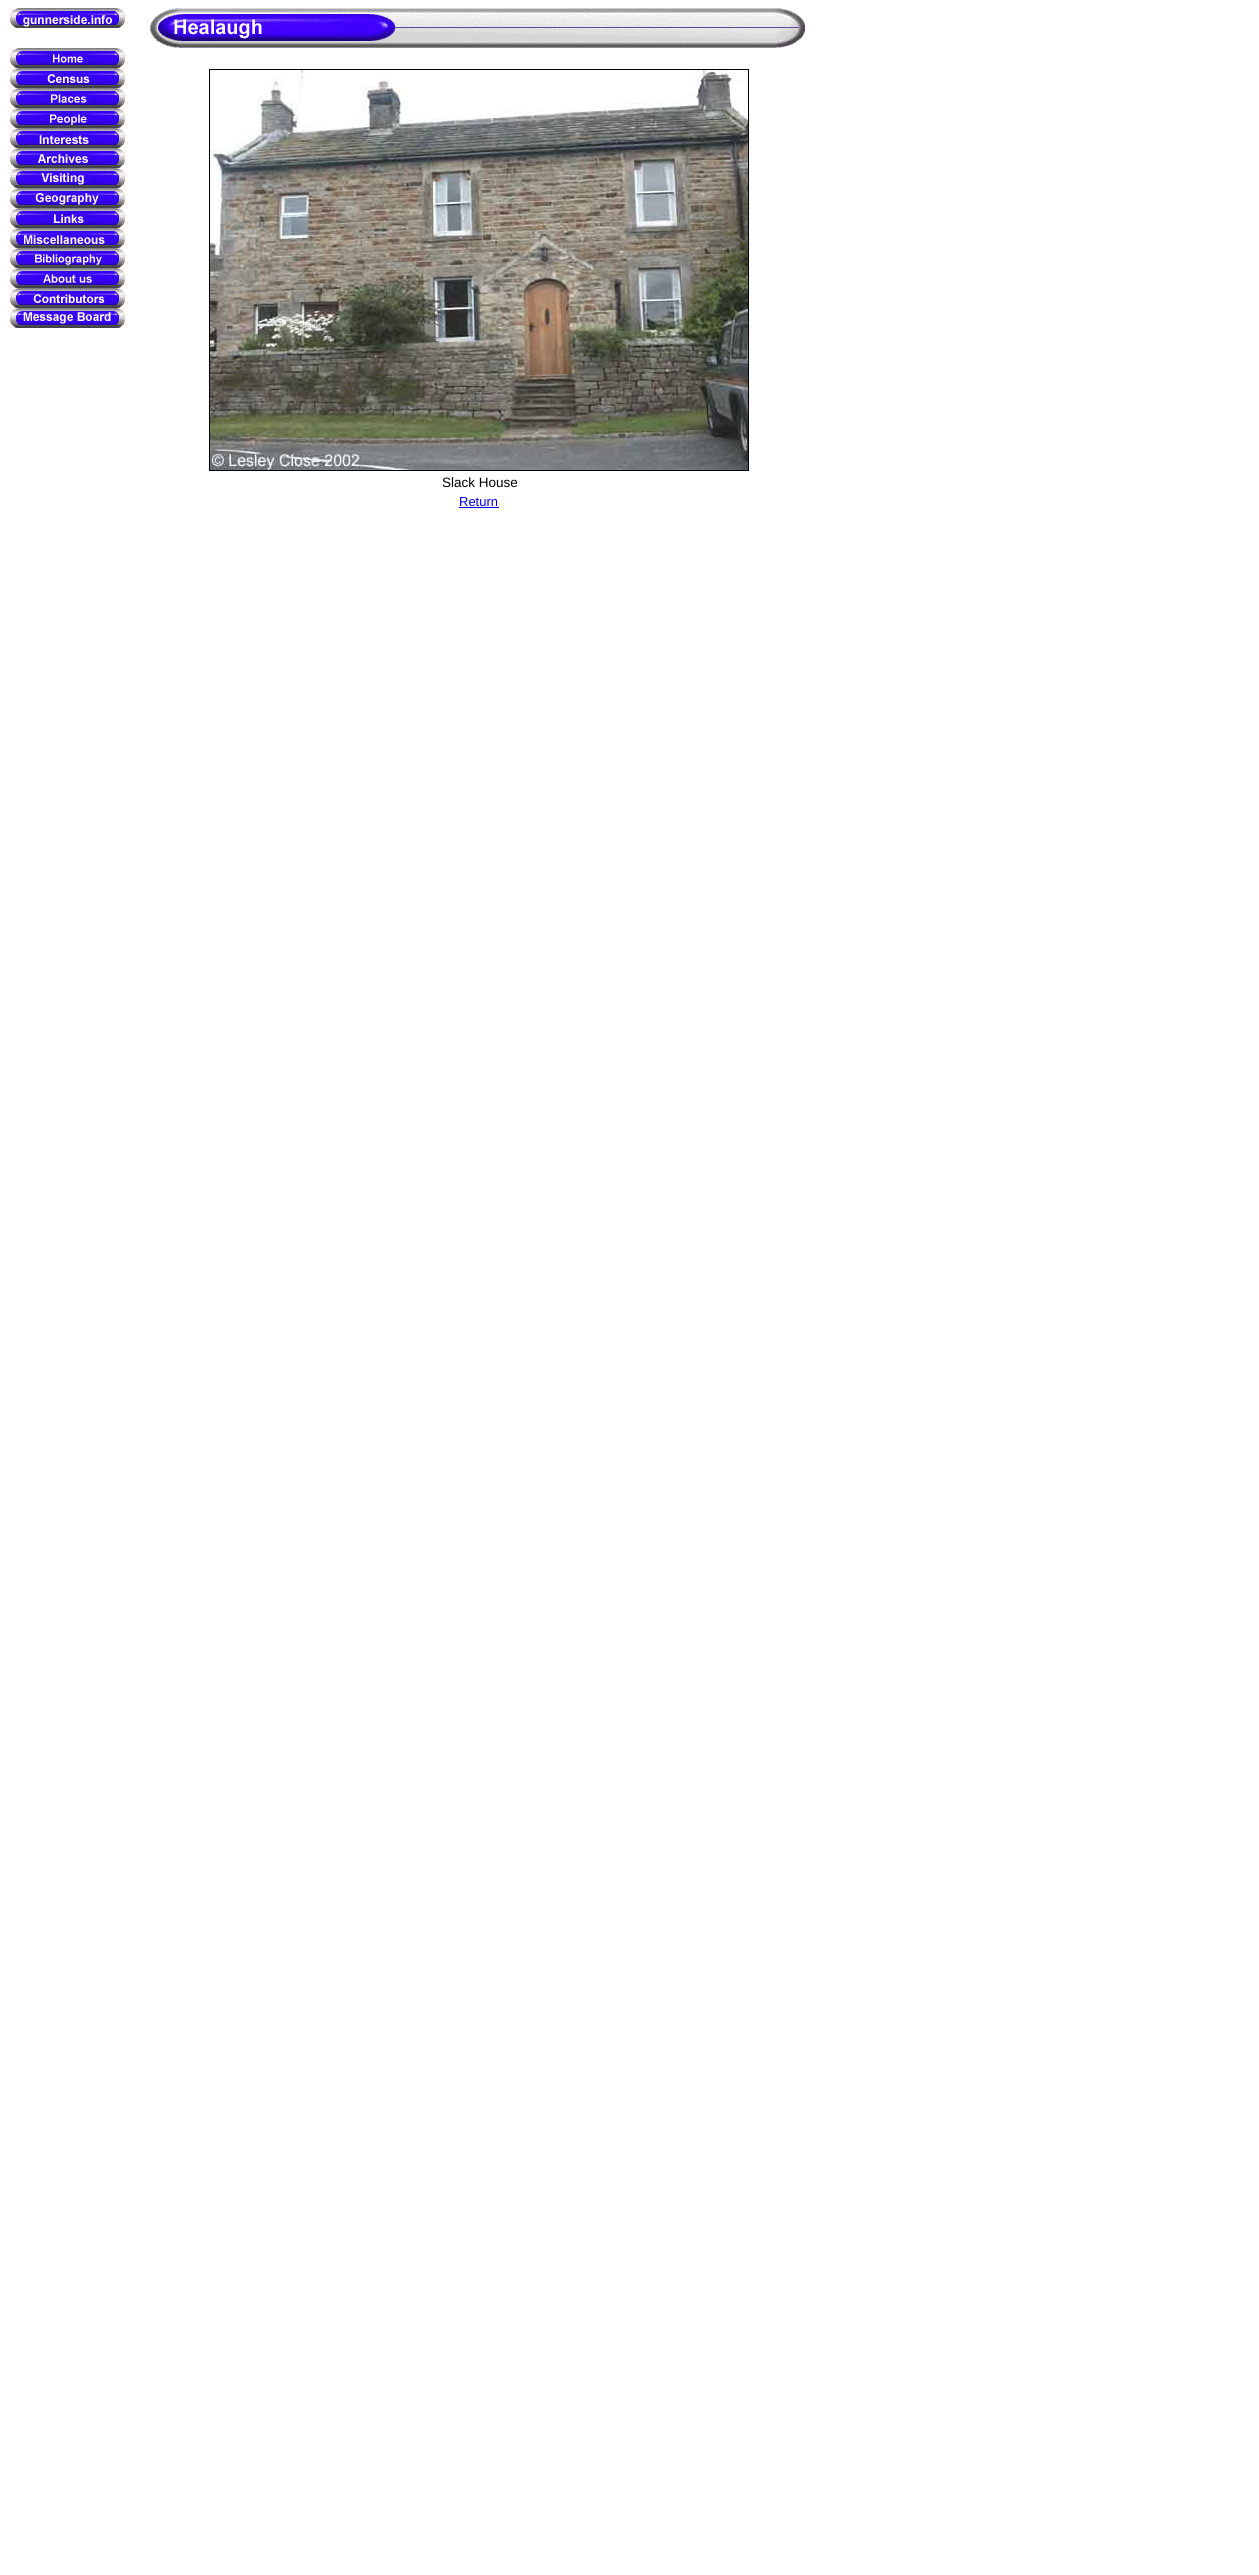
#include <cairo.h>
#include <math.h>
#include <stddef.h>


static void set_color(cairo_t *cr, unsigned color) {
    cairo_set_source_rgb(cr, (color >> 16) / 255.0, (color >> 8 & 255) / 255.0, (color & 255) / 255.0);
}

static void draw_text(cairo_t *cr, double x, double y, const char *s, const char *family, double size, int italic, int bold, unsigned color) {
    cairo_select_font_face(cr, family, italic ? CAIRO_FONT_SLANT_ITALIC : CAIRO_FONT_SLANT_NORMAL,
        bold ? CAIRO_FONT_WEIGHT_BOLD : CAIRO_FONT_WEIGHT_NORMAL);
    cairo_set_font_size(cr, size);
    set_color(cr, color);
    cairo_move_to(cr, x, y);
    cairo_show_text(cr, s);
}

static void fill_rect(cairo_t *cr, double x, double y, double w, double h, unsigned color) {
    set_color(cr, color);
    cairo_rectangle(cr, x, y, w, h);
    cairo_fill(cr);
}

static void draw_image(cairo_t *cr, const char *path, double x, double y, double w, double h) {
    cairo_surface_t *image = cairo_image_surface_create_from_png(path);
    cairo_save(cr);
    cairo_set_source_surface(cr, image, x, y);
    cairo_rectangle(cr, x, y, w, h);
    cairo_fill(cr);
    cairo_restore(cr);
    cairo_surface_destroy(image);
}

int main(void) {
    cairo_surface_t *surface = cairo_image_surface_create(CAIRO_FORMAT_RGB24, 1259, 2575);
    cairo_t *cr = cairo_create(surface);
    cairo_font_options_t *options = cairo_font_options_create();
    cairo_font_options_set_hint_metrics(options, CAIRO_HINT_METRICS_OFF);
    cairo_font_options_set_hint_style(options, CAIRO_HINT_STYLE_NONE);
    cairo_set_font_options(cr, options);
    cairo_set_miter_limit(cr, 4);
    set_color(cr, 0xFFFFFF);
    cairo_paint(cr);
    draw_image(cr, "assets/img1.png", 10, 8, 115, 20);
    draw_image(cr, "assets/img2.png", 150, 8, 655, 40);
    draw_image(cr, "assets/img3.png", 10, 48, 115, 20);
    draw_image(cr, "assets/img4.png", 10, 68, 115, 20);
    draw_image(cr, "assets/img5.png", 10, 88, 115, 20);
    draw_image(cr, "assets/img6.png", 10, 108, 115, 20);
    draw_image(cr, "assets/img7.png", 10, 128, 115, 20);
    draw_image(cr, "assets/img8.png", 10, 148, 115, 20);
    draw_image(cr, "assets/img9.png", 10, 168, 115, 20);
    draw_image(cr, "assets/img10.png", 10, 188, 115, 20);
    draw_image(cr, "assets/img11.png", 10, 208, 115, 20);
    draw_image(cr, "assets/img12.png", 10, 228, 115, 20);
    draw_image(cr, "assets/img13.png", 10, 248, 115, 20);
    draw_image(cr, "assets/img14.png", 10, 268, 115, 20);
    draw_image(cr, "assets/img15.png", 10, 288, 115, 20);
    draw_image(cr, "assets/img16.png", 10, 308, 115, 20);
    cairo_rectangle(cr, 209.5, 69.5, 539, 401);
    set_color(cr, 0x000000);
    cairo_set_line_width(cr, 1);
    cairo_stroke(cr);
    draw_image(cr, "assets/img17.png", 210, 70, 538, 400);
    draw_text(cr, 442, 487, "Slack House", "Liberation Sans", 13.5, 0, 0, 0x000000);
    draw_text(cr, 459, 506, "Return", "Liberation Sans", 13, 0, 0, 0x0000EE);
    fill_rect(cr, 459, 507, 40, 1, 0x0000EE);
    cairo_surface_write_to_png(surface, "output.png");
    cairo_font_options_destroy(options);
    cairo_destroy(cr);
    cairo_surface_destroy(surface);
    return 0;
}
